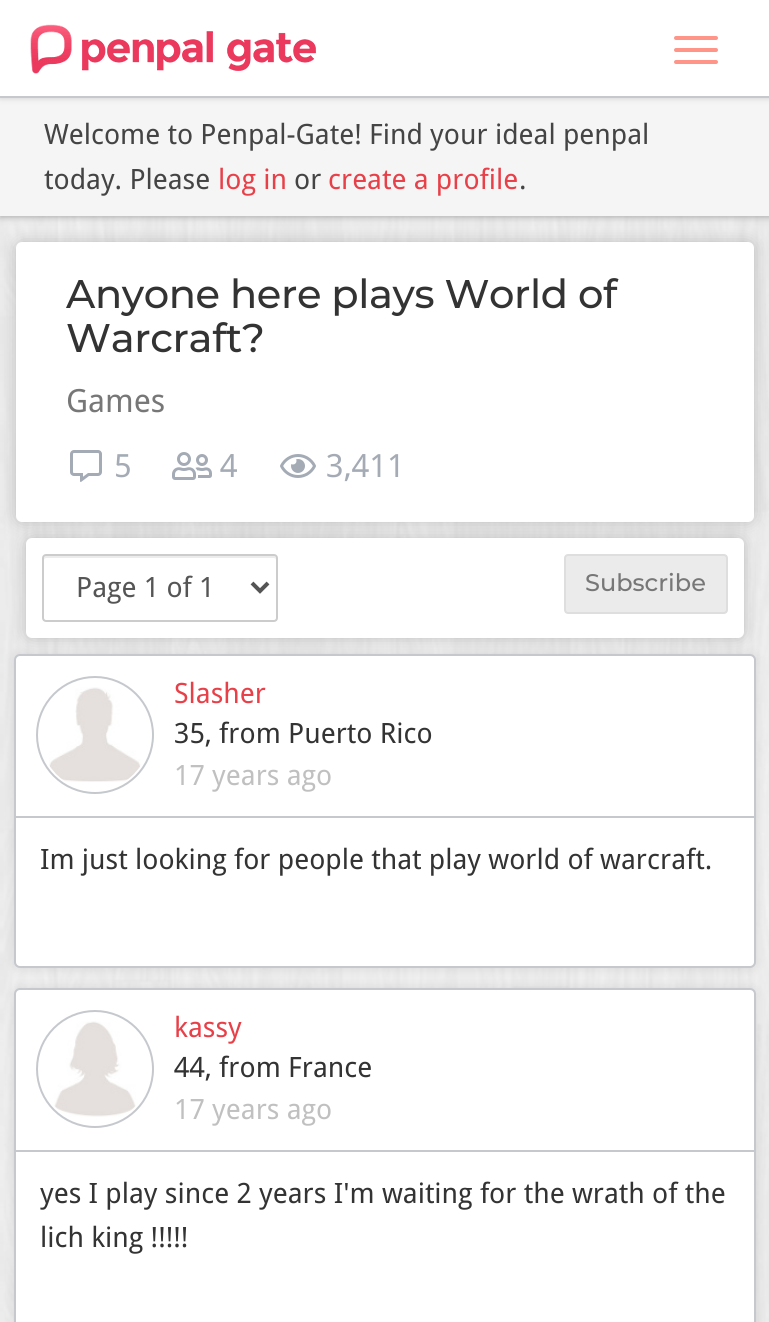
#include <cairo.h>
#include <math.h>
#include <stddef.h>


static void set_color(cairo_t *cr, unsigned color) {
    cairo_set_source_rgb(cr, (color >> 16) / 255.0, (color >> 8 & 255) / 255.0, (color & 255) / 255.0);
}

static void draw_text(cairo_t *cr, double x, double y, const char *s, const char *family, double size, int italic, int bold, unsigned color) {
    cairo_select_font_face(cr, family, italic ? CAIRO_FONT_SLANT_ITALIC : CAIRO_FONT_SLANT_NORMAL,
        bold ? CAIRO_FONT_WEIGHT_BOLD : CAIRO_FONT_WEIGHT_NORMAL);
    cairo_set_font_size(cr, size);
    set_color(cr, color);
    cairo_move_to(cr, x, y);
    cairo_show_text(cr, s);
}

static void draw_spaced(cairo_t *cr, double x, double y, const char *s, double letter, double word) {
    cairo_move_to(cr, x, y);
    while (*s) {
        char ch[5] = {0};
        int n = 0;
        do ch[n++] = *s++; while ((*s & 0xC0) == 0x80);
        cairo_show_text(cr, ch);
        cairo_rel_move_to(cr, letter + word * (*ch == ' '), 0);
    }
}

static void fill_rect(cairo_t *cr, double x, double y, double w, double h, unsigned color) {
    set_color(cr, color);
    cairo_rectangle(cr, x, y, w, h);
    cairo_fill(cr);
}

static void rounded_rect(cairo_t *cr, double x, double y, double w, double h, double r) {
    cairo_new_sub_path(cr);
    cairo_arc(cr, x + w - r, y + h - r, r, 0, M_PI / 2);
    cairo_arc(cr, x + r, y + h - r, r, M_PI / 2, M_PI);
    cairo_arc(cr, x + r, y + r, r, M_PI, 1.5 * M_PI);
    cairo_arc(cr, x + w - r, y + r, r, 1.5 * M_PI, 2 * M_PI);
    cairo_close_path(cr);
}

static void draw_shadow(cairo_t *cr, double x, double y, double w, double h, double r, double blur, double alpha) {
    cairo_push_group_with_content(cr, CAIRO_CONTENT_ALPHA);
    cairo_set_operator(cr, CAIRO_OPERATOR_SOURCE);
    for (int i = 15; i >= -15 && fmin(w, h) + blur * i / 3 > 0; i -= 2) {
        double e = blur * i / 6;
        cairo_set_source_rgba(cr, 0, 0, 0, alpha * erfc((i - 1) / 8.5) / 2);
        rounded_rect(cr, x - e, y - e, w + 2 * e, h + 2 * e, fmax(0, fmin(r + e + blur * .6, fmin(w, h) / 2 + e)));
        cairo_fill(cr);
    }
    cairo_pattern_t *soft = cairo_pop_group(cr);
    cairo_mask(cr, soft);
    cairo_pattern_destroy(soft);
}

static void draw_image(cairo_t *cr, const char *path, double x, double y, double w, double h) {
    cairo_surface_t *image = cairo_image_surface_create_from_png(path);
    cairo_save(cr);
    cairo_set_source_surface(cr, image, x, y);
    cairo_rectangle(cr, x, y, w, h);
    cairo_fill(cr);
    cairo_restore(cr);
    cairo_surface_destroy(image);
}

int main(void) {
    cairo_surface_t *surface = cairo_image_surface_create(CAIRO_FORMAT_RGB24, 769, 1322);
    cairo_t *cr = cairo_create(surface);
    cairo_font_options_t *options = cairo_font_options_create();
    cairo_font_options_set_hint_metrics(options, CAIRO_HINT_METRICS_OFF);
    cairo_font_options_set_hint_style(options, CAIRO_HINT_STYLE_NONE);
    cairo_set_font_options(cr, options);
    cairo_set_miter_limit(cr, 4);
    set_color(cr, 0xFFFFFF);
    cairo_paint(cr);
    draw_image(cr, "assets/img1.png", 0, 216, 769, 1106);
    set_color(cr, 0x999999);
    draw_shadow(cr, 0, 98, 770, 118, 0, 4, 1);
    fill_rect(cr, 0, 98, 769, 118, 0xF5F5F5);
    set_color(cr, 0xCCCCCC);
    draw_shadow(cr, 0, 0, 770, 98, 0, 3, 1);
    fill_rect(cr, 0, 0, 769, 96, 0xFFFFFF);
    fill_rect(cr, 0, 96, 769, 2, 0xC5C8CD);
    draw_image(cr, "assets/img2.png", 30, 24, 286, 50);
    set_color(cr, 0xFF9488);
    rounded_rect(cr, 674, 36, 44, 4, 2);
    cairo_fill(cr);
    rounded_rect(cr, 674, 48, 44, 4, 2);
    cairo_fill(cr);
    rounded_rect(cr, 674, 60, 44, 4, 2);
    cairo_fill(cr);
    draw_text(cr, 44, 144, "Welcome to Penpal-Gate! Find your ideal penpal", "Droid Sans", 28, 0, 0, 0x444444);
    draw_text(cr, 44, 189, "today. Please", "Droid Sans", 28, 0, 0, 0x444444);
    draw_text(cr, 218, 189, "log in", "Droid Sans", 28, 0, 0, 0xE84048);
    draw_text(cr, 294, 189, "or", "Droid Sans", 28, 0, 0, 0x444444);
    draw_text(cr, 328, 189, "create a profile", "Droid Sans", 28, 0, 0, 0xE84048);
    draw_text(cr, 519, 189, ".", "Droid Sans", 28, 0, 0, 0x444444);
    set_color(cr, 0x000000);
    draw_shadow(cr, 16, 242, 738, 280, 6, 8, 0.2);
    set_color(cr, 0xFFFFFF);
    rounded_rect(cr, 16, 242, 738, 280, 6);
    cairo_fill(cr);
    cairo_select_font_face(cr, "Montserrat Medium", CAIRO_FONT_SLANT_NORMAL, CAIRO_FONT_WEIGHT_NORMAL);
    cairo_set_font_size(cr, 40);
    set_color(cr, 0x333333);
    draw_spaced(cr, 66, 308, "Anyone here plays World of", -0.4, 0);
    draw_spaced(cr, 66, 352, "Warcraft?", -0.4, 0);
    draw_text(cr, 66, 412, "Games", "Droid Sans", 32, 0, 0, 0x777777);
    draw_image(cr, "assets/img3.png", 70, 450, 32, 32);
    draw_text(cr, 114, 477, "5", "Droid Sans", 32, 0, 0, 0xA4ABB5);
    draw_image(cr, "assets/img4.png", 172, 452, 40, 28);
    draw_text(cr, 220, 477, "4", "Droid Sans", 32, 0, 0, 0xA4ABB5);
    draw_image(cr, "assets/img5.png", 280, 454, 36, 24);
    draw_text(cr, 326, 477, "3,411", "Droid Sans", 32, 0, 0, 0xA4ABB5);
    set_color(cr, 0x000000);
    draw_shadow(cr, 26, 538, 718, 100, 6, 8, 0.2);
    set_color(cr, 0xFFFFFF);
    rounded_rect(cr, 26, 538, 718, 100, 6);
    cairo_fill(cr);
    set_color(cr, 0xECECEC);
    cairo_new_path(cr);
    cairo_move_to(cr, 46, 558);
    cairo_line_to(cr, 274, 558);
    cairo_curve_to(cr, 275, 558, 276, 559, 276, 560);
    cairo_curve_to(cr, 276, 558, 276, 556, 274, 556);
    cairo_line_to(cr, 46, 556);
    cairo_curve_to(cr, 44, 556, 44, 558, 44, 560);
    cairo_curve_to(cr, 44, 559, 45, 558, 46, 558);
    cairo_close_path(cr);
    cairo_fill(cr);
    rounded_rect(cr, 43, 555, 234, 66, 3);
    set_color(cr, 0xCCCCCC);
    cairo_stroke(cr);
    cairo_new_path(cr);
    cairo_move_to(cr, 252, 583);
    cairo_line_to(cr, 260, 591);
    cairo_line_to(cr, 268, 583);
    set_color(cr, 0x555555);
    cairo_set_line_width(cr, 4);
    cairo_stroke(cr);
    draw_text(cr, 76, 597, "Page 1 of 1", "Droid Sans", 28, 0, 0, 0x555555);
    set_color(cr, 0xEBEBEB);
    rounded_rect(cr, 565, 555, 162, 58, 3);
    cairo_fill_preserve(cr);
    set_color(cr, 0xDEDEDE);
    cairo_set_line_width(cr, 2);
    cairo_stroke(cr);
    draw_text(cr, 585, 591, "Subscribe", "Montserrat Medium", 24, 0, 0, 0x777777);
    set_color(cr, 0x000000);
    draw_shadow(cr, 14, 654, 742, 314, 6, 5, 0.1);
    set_color(cr, 0xFFFFFF);
    rounded_rect(cr, 15, 655, 740, 312, 5);
    cairo_fill_preserve(cr);
    set_color(cr, 0xC5C8CD);
    cairo_stroke(cr);
    cairo_arc(cr, 95, 735, 58, 0, 2 * M_PI);
    cairo_stroke(cr);
    draw_image(cr, "assets/img6.png", 49, 687, 92, 95);
    draw_text(cr, 174, 703, "Slasher", "Droid Sans", 28, 0, 0, 0xE84048);
    draw_text(cr, 174, 743, "35, from Puerto Rico", "Droid Sans", 28, 0, 0, 0x333333);
    draw_text(cr, 174, 785, "17 years ago", "Droid Sans", 28, 0, 0, 0xC0C0C0);
    fill_rect(cr, 16, 816, 738, 2, 0xC5C8CD);
    draw_text(cr, 40, 869, "Im just looking for people that play world of warcraft.", "Droid Sans", 28, 0, 0, 0x333333);
    set_color(cr, 0x000000);
    draw_shadow(cr, 14, 988, 742, 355, 6, 5, 0.1);
    set_color(cr, 0xFFFFFF);
    rounded_rect(cr, 15, 989, 740, 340, 5);
    cairo_fill_preserve(cr);
    set_color(cr, 0xC5C8CD);
    cairo_stroke(cr);
    cairo_arc(cr, 95, 1069, 58, 0, 2 * M_PI);
    cairo_stroke(cr);
    draw_image(cr, "assets/img7.png", 54, 1021, 82, 96);
    draw_text(cr, 174, 1037, "kassy", "Droid Sans", 28, 0, 0, 0xE84048);
    draw_text(cr, 174, 1077, "44, from France", "Droid Sans", 28, 0, 0, 0x333333);
    draw_text(cr, 174, 1119, "17 years ago", "Droid Sans", 28, 0, 0, 0xC0C0C0);
    fill_rect(cr, 16, 1150, 738, 2, 0xC5C8CD);
    draw_text(cr, 40, 1203, "yes I play since 2 years I'm waiting for the wrath of the", "Droid Sans", 28, 0, 0, 0x333333);
    draw_text(cr, 40, 1247, "lich king !!!!!", "Droid Sans", 28, 0, 0, 0x333333);
    cairo_surface_write_to_png(surface, "output.png");
    cairo_font_options_destroy(options);
    cairo_destroy(cr);
    cairo_surface_destroy(surface);
    return 0;
}
